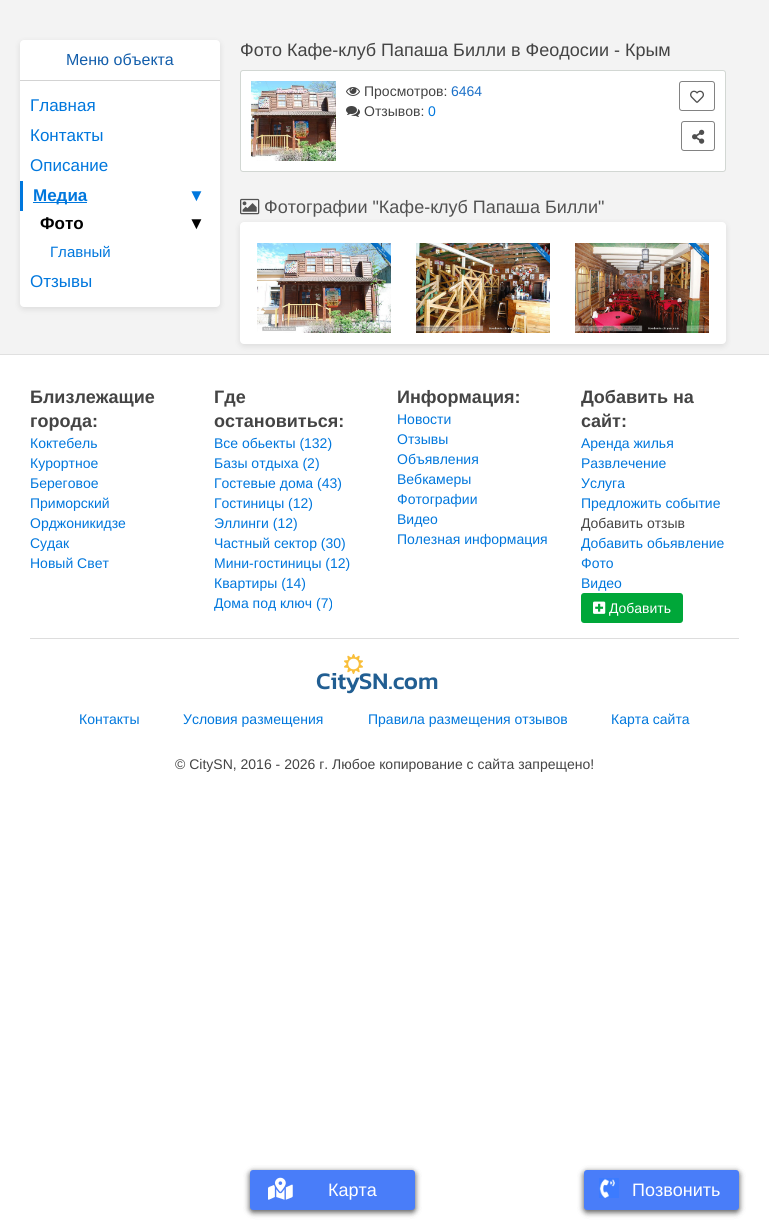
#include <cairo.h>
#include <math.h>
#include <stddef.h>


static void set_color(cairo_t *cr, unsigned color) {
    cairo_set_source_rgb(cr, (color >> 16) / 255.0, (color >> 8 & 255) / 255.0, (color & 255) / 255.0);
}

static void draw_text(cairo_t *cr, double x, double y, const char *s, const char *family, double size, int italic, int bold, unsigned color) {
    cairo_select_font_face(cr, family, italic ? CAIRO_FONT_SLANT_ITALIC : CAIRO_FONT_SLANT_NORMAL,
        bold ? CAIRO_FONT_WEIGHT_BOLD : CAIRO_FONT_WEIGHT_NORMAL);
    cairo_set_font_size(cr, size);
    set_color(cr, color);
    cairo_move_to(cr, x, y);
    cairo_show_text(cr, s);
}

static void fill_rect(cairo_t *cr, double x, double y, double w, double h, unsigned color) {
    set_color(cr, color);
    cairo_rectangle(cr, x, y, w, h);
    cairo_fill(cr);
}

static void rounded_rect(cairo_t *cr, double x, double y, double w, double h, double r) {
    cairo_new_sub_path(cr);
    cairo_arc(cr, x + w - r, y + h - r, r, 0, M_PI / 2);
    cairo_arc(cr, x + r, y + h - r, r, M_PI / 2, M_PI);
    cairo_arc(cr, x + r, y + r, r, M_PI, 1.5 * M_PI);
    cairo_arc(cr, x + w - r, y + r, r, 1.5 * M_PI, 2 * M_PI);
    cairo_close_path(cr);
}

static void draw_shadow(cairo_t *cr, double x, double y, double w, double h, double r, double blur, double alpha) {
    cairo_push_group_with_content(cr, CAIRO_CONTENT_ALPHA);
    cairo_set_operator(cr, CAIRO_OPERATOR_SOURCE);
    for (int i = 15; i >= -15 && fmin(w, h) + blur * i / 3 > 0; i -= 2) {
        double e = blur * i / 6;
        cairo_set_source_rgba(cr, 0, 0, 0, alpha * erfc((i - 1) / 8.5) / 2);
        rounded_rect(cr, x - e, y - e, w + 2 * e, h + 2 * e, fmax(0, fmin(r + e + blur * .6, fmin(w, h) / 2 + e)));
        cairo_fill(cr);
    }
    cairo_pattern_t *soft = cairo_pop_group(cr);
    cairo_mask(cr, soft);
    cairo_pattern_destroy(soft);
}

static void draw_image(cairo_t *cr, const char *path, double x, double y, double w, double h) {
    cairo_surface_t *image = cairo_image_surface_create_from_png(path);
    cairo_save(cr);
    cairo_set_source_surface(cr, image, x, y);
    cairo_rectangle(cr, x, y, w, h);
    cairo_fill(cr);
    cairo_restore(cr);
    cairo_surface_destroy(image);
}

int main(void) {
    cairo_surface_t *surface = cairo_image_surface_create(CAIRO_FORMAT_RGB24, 769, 1220);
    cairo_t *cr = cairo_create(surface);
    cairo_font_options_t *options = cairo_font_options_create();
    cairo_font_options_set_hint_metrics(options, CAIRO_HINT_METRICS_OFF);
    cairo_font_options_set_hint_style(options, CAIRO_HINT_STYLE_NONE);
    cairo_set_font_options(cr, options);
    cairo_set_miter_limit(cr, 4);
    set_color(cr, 0xFFFFFF);
    cairo_paint(cr);
    fill_rect(cr, 0, 0, 769, 354, 0xF3F3F3);
    set_color(cr, 0x000000);
    draw_shadow(cr, 20, 42, 200, 267, 4, 3, 0.1);
    set_color(cr, 0xFFFFFF);
    rounded_rect(cr, 20, 40, 200, 267, 4);
    cairo_fill(cr);
    fill_rect(cr, 20, 80, 200, 1, 0xD3D3D3);
    draw_text(cr, 66, 65, "Меню объекта", "Liberation Sans", 16, 0, 0, 0x135EAB);
    draw_text(cr, 30, 111, "Главная", "Liberation Sans", 17, 0, 0, 0x0077DD);
    draw_text(cr, 30, 141, "Контакты", "Liberation Sans", 17, 0, 0, 0x0077DD);
    draw_text(cr, 30, 171, "Описание", "Liberation Sans", 17, 0, 0, 0x0077DD);
    fill_rect(cr, 20, 181, 3, 30, 0x0077DD);
    fill_rect(cr, 33, 202, 54, 1, 0x0077DD);
    draw_text(cr, 33, 201, "Медиа", "Liberation Sans", 17, 0, 1, 0x0077DD);
    draw_text(cr, 188, 201, "▼", "Liberation Sans", 17, 0, 1, 0x0077DD);
    draw_text(cr, 40, 229, "Фото", "Liberation Sans", 17, 0, 1, 0x000000);
    draw_text(cr, 188, 229, "▼", "Liberation Sans", 17, 0, 1, 0x000000);
    draw_text(cr, 50, 257, "Главный", "Liberation Sans", 15, 0, 0, 0x0077DD);
    draw_text(cr, 30, 287, "Отзывы", "Liberation Sans", 17, 0, 0, 0x0077DD);
    draw_text(cr, 240, 56, "Фото Кафе-клуб Папаша Билли в Феодосии - Крым", "Liberation Sans", 18, 0, 0, 0x444444);
    set_color(cr, 0xFFFFFF);
    rounded_rect(cr, 240.5, 70.5, 485, 101, 2.5);
    cairo_fill_preserve(cr);
    set_color(cr, 0xD2D7D3);
    cairo_set_line_width(cr, 1);
    cairo_stroke(cr);
    draw_image(cr, "assets/img1.png", 251, 81, 85, 80);
    draw_image(cr, "assets/img2.png", 346, 87, 14, 9);
    draw_text(cr, 364, 96, "Просмотров:", "Liberation Sans", 14, 0, 0, 0x444444);
    draw_text(cr, 451, 96, "6464", "Liberation Sans", 14, 0, 0, 0x1B70C8);
    draw_image(cr, "assets/img3.png", 346, 106, 14, 11);
    draw_text(cr, 364, 116, "Отзывов:", "Liberation Sans", 14, 0, 0, 0x444444);
    draw_text(cr, 428, 116, "0", "Liberation Sans", 14, 0, 0, 0x0077DD);
    rounded_rect(cr, 679.5, 81.5, 35, 29, 2.5);
    set_color(cr, 0x828282);
    cairo_stroke(cr);
    draw_image(cr, "assets/img4.png", 690, 90, 14, 13);
    rounded_rect(cr, 681.5, 121.5, 33, 29, 2.5);
    cairo_stroke(cr);
    draw_image(cr, "assets/img5.png", 692, 129, 13, 15);
    set_color(cr, 0x000000);
    draw_shadow(cr, 240, 224, 486, 122, 4, 3, 0.1);
    draw_image(cr, "assets/img6.png", 240, 198, 20, 17);
    draw_text(cr, 264, 213, "Фотографии \"Кафе-клуб Папаша Билли\"", "Liberation Sans", 18, 0, 0, 0x525252);
    set_color(cr, 0xFFFFFF);
    rounded_rect(cr, 240, 222, 486, 122, 4);
    cairo_fill(cr);
    draw_image(cr, "assets/img7.png", 257, 243, 134, 90);
    draw_image(cr, "assets/img8.png", 416, 243, 134, 90);
    draw_image(cr, "assets/img9.png", 575, 243, 134, 90);
    set_color(cr, 0x000000);
    draw_shadow(cr, 250, 1172, 165, 40, 3, 3, 0.4);
    draw_shadow(cr, 584, 1172, 155, 40, 3, 3, 0.4);
    draw_shadow(cr, 250, 1172, 165, 40, 3, 3, 0.4);
    set_color(cr, 0x497DF9);
    rounded_rect(cr, 250, 1170, 165, 40, 3);
    cairo_fill(cr);
    draw_image(cr, "assets/img10.png", 268, 1177, 25, 23);
    draw_text(cr, 328, 1196, "Карта", "Liberation Sans", 18, 0, 0, 0xFFFFFF);
    set_color(cr, 0x000000);
    draw_shadow(cr, 584, 1172, 155, 40, 3, 3, 0.4);
    set_color(cr, 0x497DF9);
    rounded_rect(cr, 584, 1170, 155, 40, 3);
    cairo_fill(cr);
    draw_image(cr, "assets/img11.png", 599, 1178, 20, 20);
    draw_text(cr, 632, 1196, "Позвонить", "Liberation Sans", 18, 0, 0, 0xFFFFFF);
    fill_rect(cr, 0, 354, 769, 1, 0xE0E0E0);
    draw_text(cr, 30, 403, "Близлежащие", "Liberation Sans", 18, 0, 1, 0x444444);
    draw_text(cr, 30, 427, "города:", "Liberation Sans", 18, 0, 1, 0x444444);
    draw_text(cr, 30, 448, "Коктебель", "Liberation Sans", 14, 0, 0, 0x0077DD);
    draw_text(cr, 30, 468, "Курортное", "Liberation Sans", 14, 0, 0, 0x0077DD);
    draw_text(cr, 30, 488, "Береговое", "Liberation Sans", 14, 0, 0, 0x0077DD);
    draw_text(cr, 30, 508, "Приморский", "Liberation Sans", 14, 0, 0, 0x0077DD);
    draw_text(cr, 30, 528, "Орджоникидзе", "Liberation Sans", 14, 0, 0, 0x0077DD);
    draw_text(cr, 30, 548, "Судак", "Liberation Sans", 14, 0, 0, 0x0077DD);
    draw_text(cr, 30, 568, "Новый Свет", "Liberation Sans", 14, 0, 0, 0x0077DD);
    draw_text(cr, 214, 403, "Где", "Liberation Sans", 18, 0, 1, 0x444444);
    draw_text(cr, 214, 427, "остановиться:", "Liberation Sans", 18, 0, 1, 0x444444);
    draw_text(cr, 214, 448, "Все обьекты (132)", "Liberation Sans", 14, 0, 0, 0x0077DD);
    draw_text(cr, 214, 468, "Базы отдыха (2)", "Liberation Sans", 14, 0, 0, 0x0077DD);
    draw_text(cr, 214, 488, "Гостевые дома (43)", "Liberation Sans", 14, 0, 0, 0x0077DD);
    draw_text(cr, 214, 508, "Гостиницы (12)", "Liberation Sans", 14, 0, 0, 0x0077DD);
    draw_text(cr, 214, 528, "Эллинги (12)", "Liberation Sans", 14, 0, 0, 0x0077DD);
    draw_text(cr, 214, 548, "Частный сектор (30)", "Liberation Sans", 14, 0, 0, 0x0077DD);
    draw_text(cr, 214, 568, "Мини-гостиницы (12)", "Liberation Sans", 14, 0, 0, 0x0077DD);
    draw_text(cr, 214, 588, "Квартиры (14)", "Liberation Sans", 14, 0, 0, 0x0077DD);
    draw_text(cr, 214, 608, "Дома под ключ (7)", "Liberation Sans", 14, 0, 0, 0x0077DD);
    draw_text(cr, 397, 403, "Информация:", "Liberation Sans", 18, 0, 1, 0x444444);
    draw_text(cr, 397, 424, "Новости", "Liberation Sans", 14, 0, 0, 0x0077DD);
    draw_text(cr, 397, 444, "Отзывы", "Liberation Sans", 14, 0, 0, 0x0077DD);
    draw_text(cr, 397, 464, "Объявления", "Liberation Sans", 14, 0, 0, 0x0077DD);
    draw_text(cr, 397, 484, "Вебкамеры", "Liberation Sans", 14, 0, 0, 0x0077DD);
    draw_text(cr, 397, 504, "Фотографии", "Liberation Sans", 14, 0, 0, 0x0077DD);
    draw_text(cr, 397, 524, "Видео", "Liberation Sans", 14, 0, 0, 0x0077DD);
    draw_text(cr, 397, 544, "Полезная информация", "Liberation Sans", 14, 0, 0, 0x0077DD);
    draw_text(cr, 581, 403, "Добавить на", "Liberation Sans", 18, 0, 1, 0x444444);
    draw_text(cr, 581, 427, "сайт:", "Liberation Sans", 18, 0, 1, 0x444444);
    draw_text(cr, 581, 448, "Аренда жилья", "Liberation Sans", 14, 0, 0, 0x0077DD);
    draw_text(cr, 581, 468, "Развлечение", "Liberation Sans", 14, 0, 0, 0x0077DD);
    draw_text(cr, 581, 488, "Услуга", "Liberation Sans", 14, 0, 0, 0x0077DD);
    draw_text(cr, 581, 508, "Предложить событие", "Liberation Sans", 14, 0, 0, 0x0077DD);
    draw_text(cr, 581, 528, "Добавить отзыв", "Liberation Sans", 14, 0, 0, 0x444444);
    draw_text(cr, 581, 548, "Добавить обьявление", "Liberation Sans", 14, 0, 0, 0x0077DD);
    draw_text(cr, 581, 568, "Фото", "Liberation Sans", 14, 0, 0, 0x0077DD);
    draw_text(cr, 581, 588, "Видео", "Liberation Sans", 14, 0, 0, 0x0077DD);
    set_color(cr, 0x00A739);
    rounded_rect(cr, 581, 593, 102, 30, 3);
    cairo_fill(cr);
    draw_image(cr, "assets/img12.png", 593, 601, 13, 13);
    draw_text(cr, 609, 613, "Добавить", "Liberation Sans", 14, 0, 0, 0xFFFFFF);
    fill_rect(cr, 30, 638, 709, 1, 0xDDDDDD);
    draw_image(cr, "assets/img13.png", 316, 654, 122, 40);
    draw_text(cr, 79, 724, "Контакты", "Liberation Sans", 14, 0, 0, 0x0077DD);
    draw_text(cr, 183, 724, "Условия размещения", "Liberation Sans", 14, 0, 0, 0x0077DD);
    draw_text(cr, 368, 724, "Правила размещения отзывов", "Liberation Sans", 14, 0, 0, 0x0077DD);
    draw_text(cr, 611, 724, "Карта сайта", "Liberation Sans", 14, 0, 0, 0x0077DD);
    draw_text(cr, 175, 769, "© CitySN, 2016 - 2026 г. Любое копирование с сайта запрещено!", "Liberation Sans", 14, 0, 0, 0x444444);
    cairo_surface_write_to_png(surface, "output.png");
    cairo_font_options_destroy(options);
    cairo_destroy(cr);
    cairo_surface_destroy(surface);
    return 0;
}
